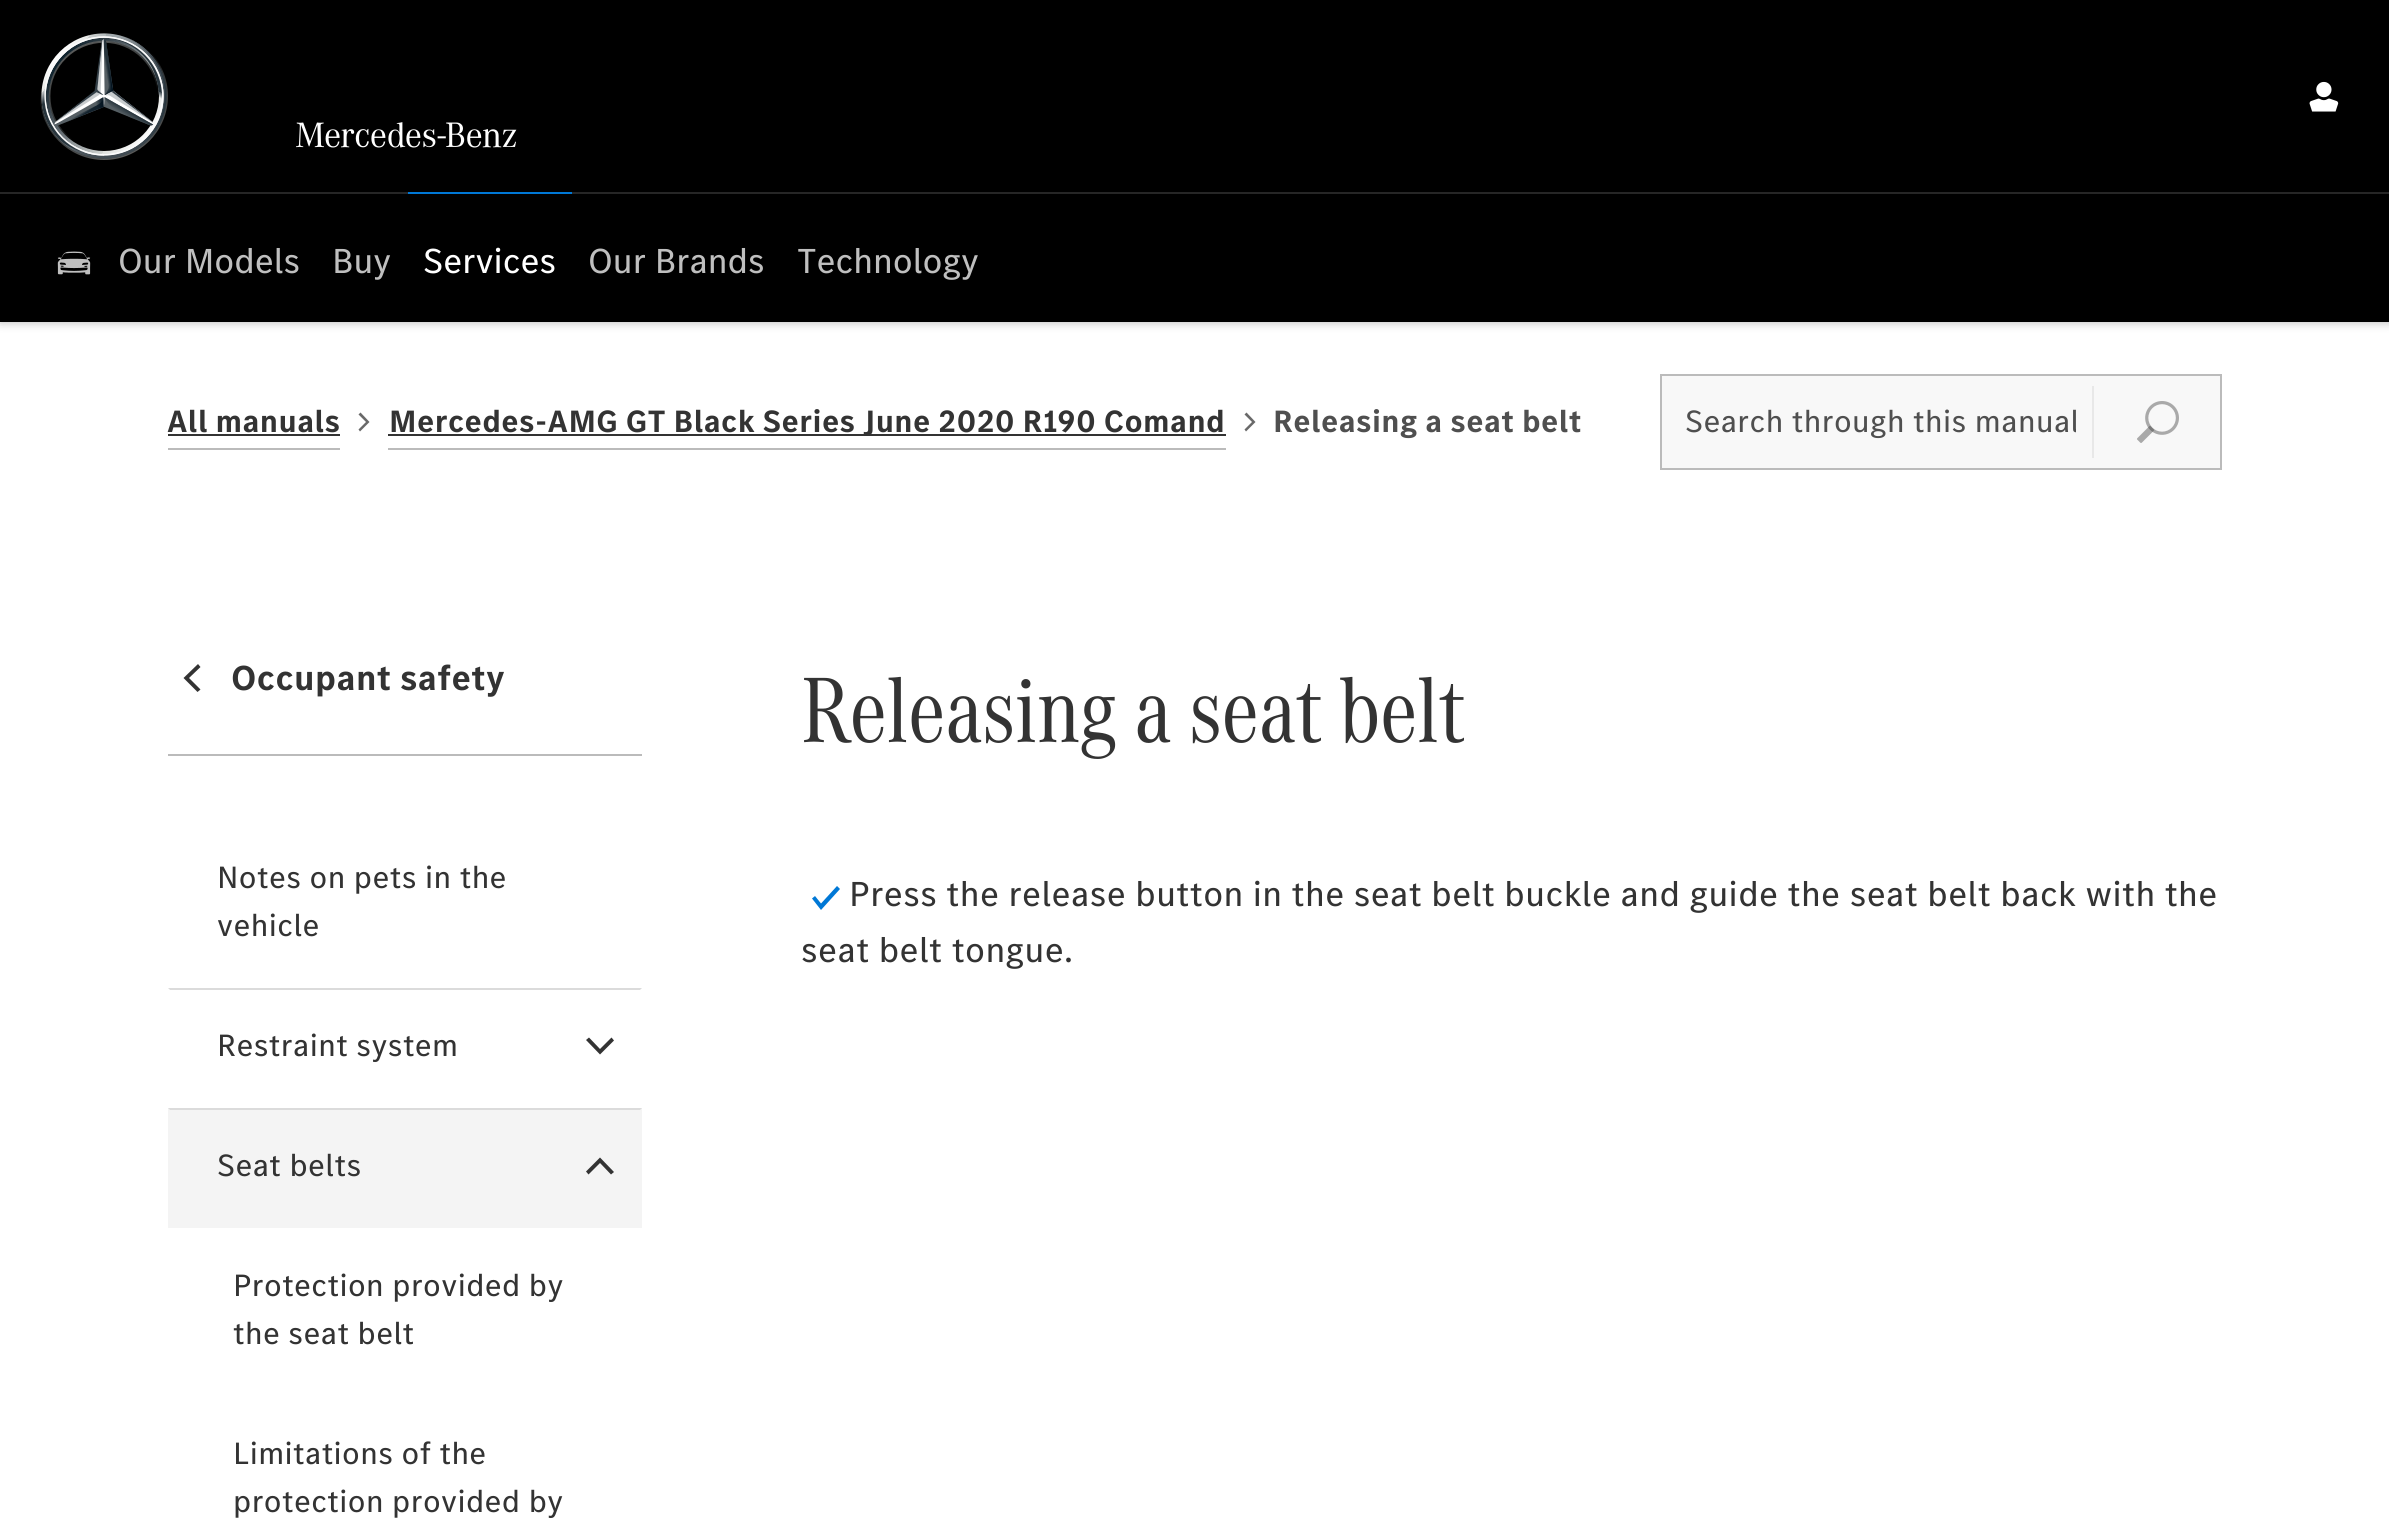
#include <cairo.h>
#include <math.h>
#include <stddef.h>


static void set_color(cairo_t *cr, unsigned color) {
    cairo_set_source_rgb(cr, (color >> 16) / 255.0, (color >> 8 & 255) / 255.0, (color & 255) / 255.0);
}

static void draw_text(cairo_t *cr, double x, double y, const char *s, const char *family, double size, int italic, int bold, unsigned color) {
    cairo_select_font_face(cr, family, italic ? CAIRO_FONT_SLANT_ITALIC : CAIRO_FONT_SLANT_NORMAL,
        bold ? CAIRO_FONT_WEIGHT_BOLD : CAIRO_FONT_WEIGHT_NORMAL);
    cairo_set_font_size(cr, size);
    set_color(cr, color);
    cairo_move_to(cr, x, y);
    cairo_show_text(cr, s);
}

static void draw_spaced(cairo_t *cr, double x, double y, const char *s, double letter, double word) {
    cairo_move_to(cr, x, y);
    while (*s) {
        char ch[5] = {0};
        int n = 0;
        do ch[n++] = *s++; while ((*s & 0xC0) == 0x80);
        cairo_show_text(cr, ch);
        cairo_rel_move_to(cr, letter + word * (*ch == ' '), 0);
    }
}

static void fill_rect(cairo_t *cr, double x, double y, double w, double h, unsigned color) {
    set_color(cr, color);
    cairo_rectangle(cr, x, y, w, h);
    cairo_fill(cr);
}

static void rounded_rect(cairo_t *cr, double x, double y, double w, double h, double r) {
    cairo_new_sub_path(cr);
    cairo_arc(cr, x + w - r, y + h - r, r, 0, M_PI / 2);
    cairo_arc(cr, x + r, y + h - r, r, M_PI / 2, M_PI);
    cairo_arc(cr, x + r, y + r, r, M_PI, 1.5 * M_PI);
    cairo_arc(cr, x + w - r, y + r, r, 1.5 * M_PI, 2 * M_PI);
    cairo_close_path(cr);
}

static void draw_shadow(cairo_t *cr, double x, double y, double w, double h, double r, double blur, double alpha) {
    cairo_push_group_with_content(cr, CAIRO_CONTENT_ALPHA);
    cairo_set_operator(cr, CAIRO_OPERATOR_SOURCE);
    for (int i = 15; i >= -15 && fmin(w, h) + blur * i / 3 > 0; i -= 2) {
        double e = blur * i / 6;
        cairo_set_source_rgba(cr, 0, 0, 0, alpha * erfc((i - 1) / 8.5) / 2);
        rounded_rect(cr, x - e, y - e, w + 2 * e, h + 2 * e, fmax(0, fmin(r + e + blur * .6, fmin(w, h) / 2 + e)));
        cairo_fill(cr);
    }
    cairo_pattern_t *soft = cairo_pop_group(cr);
    cairo_mask(cr, soft);
    cairo_pattern_destroy(soft);
}

static void draw_image(cairo_t *cr, const char *path, double x, double y, double w, double h) {
    cairo_surface_t *image = cairo_image_surface_create_from_png(path);
    cairo_save(cr);
    cairo_set_source_surface(cr, image, x, y);
    cairo_rectangle(cr, x, y, w, h);
    cairo_fill(cr);
    cairo_restore(cr);
    cairo_surface_destroy(image);
}

int main(void) {
    cairo_surface_t *surface = cairo_image_surface_create(CAIRO_FORMAT_RGB24, 2389, 1536);
    cairo_t *cr = cairo_create(surface);
    cairo_font_options_t *options = cairo_font_options_create();
    cairo_font_options_set_hint_metrics(options, CAIRO_HINT_METRICS_OFF);
    cairo_font_options_set_hint_style(options, CAIRO_HINT_STYLE_NONE);
    cairo_set_font_options(cr, options);
    cairo_set_miter_limit(cr, 4);
    set_color(cr, 0xFFFFFF);
    cairo_paint(cr);
    set_color(cr, 0x000000);
    draw_shadow(cr, 0, 0, 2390, 322, 0, 5, 0.3);
    fill_rect(cr, 0, 0, 2389, 322, 0x000000);
    draw_image(cr, "assets/img1.png", 40, 33, 128, 127);
    draw_image(cr, "assets/img2.png", 2309, 81, 30, 31);
    draw_image(cr, "assets/img3.png", 296, 122, 221, 26);
    fill_rect(cr, 0, 192, 2389, 2, 0x262626);
    draw_image(cr, "assets/img4.png", 57, 251, 34, 24);
    draw_text(cr, 118, 273, "Our Models", "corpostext", 36, 0, 0, 0xBFBFBF);
    draw_text(cr, 332, 273, "Buy", "corpostext", 36, 0, 0, 0xBFBFBF);
    fill_rect(cr, 408, 192, 164, 2, 0x0078D6);
    draw_text(cr, 423, 273, "Services", "corpostext", 36, 0, 0, 0xFFFFFF);
    draw_text(cr, 588, 273, "Our Brands", "corpostext", 36, 0, 0, 0xBFBFBF);
    draw_text(cr, 797, 273, "Technology", "corpostext", 36, 0, 0, 0xBFBFBF);
    fill_rect(cr, 168, 448, 172, 2, 0xBBBBBB);
    cairo_select_font_face(cr, "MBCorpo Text", CAIRO_FONT_SLANT_NORMAL, CAIRO_FONT_WEIGHT_BOLD);
    cairo_set_font_size(cr, 32);
    set_color(cr, 0x333333);
    draw_spaced(cr, 167, 432, "All manuals", 0.4, 0);
    fill_rect(cr, 168, 434, 172, 2, 0x333333);
    set_color(cr, 0x696969);
    cairo_new_path(cr);
    cairo_move_to(cr, 360.5, 412.5);
    cairo_line_to(cr, 358.5, 414.5);
    cairo_line_to(cr, 366, 422);
    cairo_line_to(cr, 358.5, 429.5);
    cairo_line_to(cr, 360, 431.5);
    cairo_line_to(cr, 369.5, 422);
    cairo_close_path(cr);
    cairo_fill(cr);
    fill_rect(cr, 388, 448, 838, 2, 0xBBBBBB);
    fill_rect(cr, 388, 434, 838, 2, 0x333333);
    draw_spaced(cr, 389, 432, "Mercedes-AMG GT Black Series June 2020 R190 Comand", 0.4, 0);
    set_color(cr, 0x696969);
    cairo_new_path(cr);
    cairo_move_to(cr, 1246.5, 412.5);
    cairo_line_to(cr, 1244.5, 414.5);
    cairo_line_to(cr, 1252, 422);
    cairo_line_to(cr, 1244.5, 429.5);
    cairo_line_to(cr, 1246, 431.5);
    cairo_line_to(cr, 1255.5, 422);
    cairo_close_path(cr);
    cairo_fill(cr);
    set_color(cr, 0x4F4F4F);
    draw_spaced(cr, 1273, 432, "Releasing a seat belt", 0.4, 0);
    set_color(cr, 0xF8F8F8);
    cairo_rectangle(cr, 1661, 375, 560, 94);
    cairo_fill_preserve(cr);
    set_color(cr, 0xBBBBBB);
    cairo_stroke(cr);
    cairo_save(cr);
    cairo_rectangle(cr, 1684, 398, 392, 48);
    cairo_clip(cr);
    cairo_select_font_face(cr, "MBCorpo Text", CAIRO_FONT_SLANT_NORMAL, CAIRO_FONT_WEIGHT_NORMAL);
    set_color(cr, 0x4F4F4F);
    draw_spaced(cr, 1685, 432, "Search through this manual", 0.4, 0);
    cairo_restore(cr);
    fill_rect(cr, 2092, 386, 2, 72, 0xE8E8E8);
    draw_image(cr, "assets/img5.png", 2137, 401, 42, 42);
    fill_rect(cr, 168, 754, 474, 2, 0xBBBBBB);
    set_color(cr, 0x333333);
    cairo_new_path(cr);
    cairo_move_to(cr, 197.5, 692);
    cairo_line_to(cr, 200.5, 689.5);
    cairo_line_to(cr, 189, 678);
    cairo_line_to(cr, 200.5, 667);
    cairo_line_to(cr, 198, 664);
    cairo_line_to(cr, 183.5, 678);
    cairo_close_path(cr);
    cairo_fill(cr);
    cairo_set_font_size(cr, 36);
    draw_spaced(cr, 231, 690, "Occupant safety", 0.4, 0);
    cairo_select_font_face(cr, "MBCorpo Text", CAIRO_FONT_SLANT_NORMAL, CAIRO_FONT_WEIGHT_NORMAL);
    cairo_set_font_size(cr, 32);
    draw_spaced(cr, 217, 888, "Notes on pets in the", 0.4, 0);
    draw_spaced(cr, 217, 936, "vehicle", 0.4, 0);
    set_color(cr, 0xDBDBDB);
    cairo_new_path(cr);
    cairo_move_to(cr, 168, 988);
    cairo_line_to(cr, 642, 988);
    cairo_line_to(cr, 640, 990);
    cairo_line_to(cr, 170, 990);
    cairo_close_path(cr);
    cairo_fill(cr);
    set_color(cr, 0x333333);
    draw_spaced(cr, 217, 1056, "Restraint system", 0.4, 0);
    cairo_new_path(cr);
    cairo_move_to(cr, 614, 1040.5);
    cairo_line_to(cr, 611.5, 1037.5);
    cairo_line_to(cr, 600, 1049);
    cairo_line_to(cr, 589, 1037.5);
    cairo_line_to(cr, 586, 1040);
    cairo_line_to(cr, 600, 1054.5);
    cairo_close_path(cr);
    cairo_fill(cr);
    fill_rect(cr, 168, 1108, 474, 120, 0xF4F4F4);
    set_color(cr, 0xDBDBDB);
    cairo_new_path(cr);
    cairo_move_to(cr, 168, 1108);
    cairo_line_to(cr, 642, 1108);
    cairo_line_to(cr, 640, 1110);
    cairo_line_to(cr, 170, 1110);
    cairo_close_path(cr);
    cairo_fill(cr);
    set_color(cr, 0x333333);
    draw_spaced(cr, 217, 1176, "Seat belts", 0.4, 0);
    cairo_new_path(cr);
    cairo_move_to(cr, 586, 1171.5);
    cairo_line_to(cr, 588.5, 1174.5);
    cairo_line_to(cr, 600, 1163);
    cairo_line_to(cr, 611, 1174.5);
    cairo_line_to(cr, 614, 1172);
    cairo_line_to(cr, 600, 1157.5);
    cairo_close_path(cr);
    cairo_fill(cr);
    draw_spaced(cr, 233, 1296, "Protection provided by", 0.4, 0);
    draw_spaced(cr, 233, 1344, "the seat belt", 0.4, 0);
    draw_spaced(cr, 233, 1464, "Limitations of the", 0.4, 0);
    draw_spaced(cr, 233, 1512, "protection provided by", 0.4, 0);
    draw_text(cr, 801, 742, "Releasing a seat belt", "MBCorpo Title", 96, 0, 0, 0x333333);
    set_color(cr, 0x0078D6);
    cairo_new_path(cr);
    cairo_move_to(cr, 821, 910);
    cairo_line_to(cr, 812, 898.5);
    cairo_line_to(cr, 815, 896);
    cairo_line_to(cr, 821, 903.5);
    cairo_line_to(cr, 837, 886);
    cairo_line_to(cr, 840, 889);
    cairo_close_path(cr);
    cairo_fill(cr);
    cairo_select_font_face(cr, "MBCorpo Text", CAIRO_FONT_SLANT_NORMAL, CAIRO_FONT_WEIGHT_NORMAL);
    cairo_set_font_size(cr, 36);
    set_color(cr, 0x333333);
    draw_spaced(cr, 849, 906, "Press the release button in the seat belt buckle and guide the seat belt back with the", 0.4, 0);
    draw_spaced(cr, 801, 962, "seat belt tongue.", 0.4, 0);
    cairo_surface_write_to_png(surface, "output.png");
    cairo_font_options_destroy(options);
    cairo_destroy(cr);
    cairo_surface_destroy(surface);
    return 0;
}
